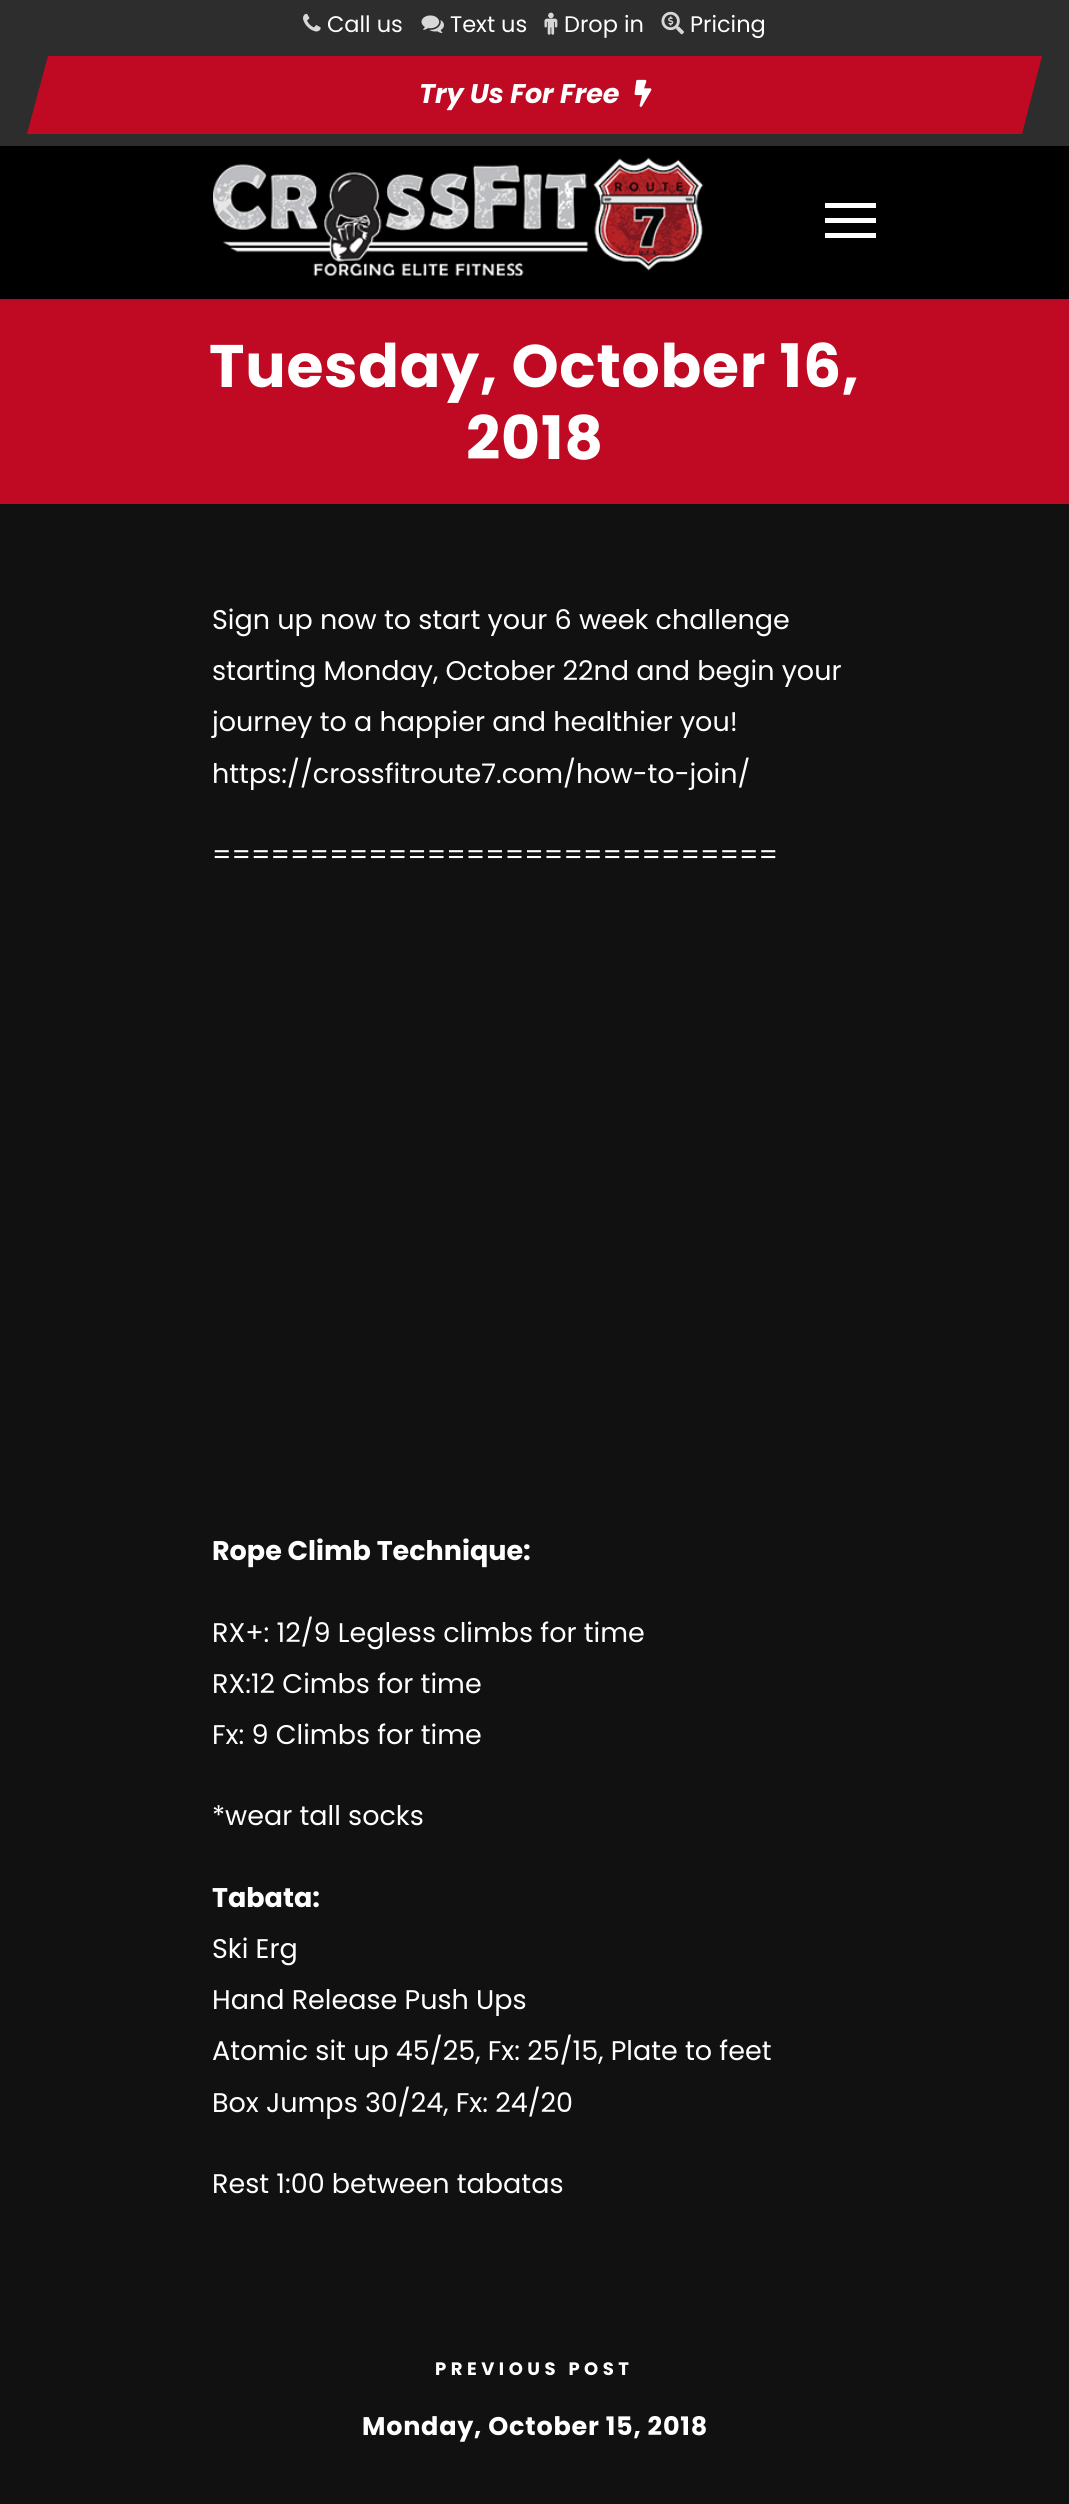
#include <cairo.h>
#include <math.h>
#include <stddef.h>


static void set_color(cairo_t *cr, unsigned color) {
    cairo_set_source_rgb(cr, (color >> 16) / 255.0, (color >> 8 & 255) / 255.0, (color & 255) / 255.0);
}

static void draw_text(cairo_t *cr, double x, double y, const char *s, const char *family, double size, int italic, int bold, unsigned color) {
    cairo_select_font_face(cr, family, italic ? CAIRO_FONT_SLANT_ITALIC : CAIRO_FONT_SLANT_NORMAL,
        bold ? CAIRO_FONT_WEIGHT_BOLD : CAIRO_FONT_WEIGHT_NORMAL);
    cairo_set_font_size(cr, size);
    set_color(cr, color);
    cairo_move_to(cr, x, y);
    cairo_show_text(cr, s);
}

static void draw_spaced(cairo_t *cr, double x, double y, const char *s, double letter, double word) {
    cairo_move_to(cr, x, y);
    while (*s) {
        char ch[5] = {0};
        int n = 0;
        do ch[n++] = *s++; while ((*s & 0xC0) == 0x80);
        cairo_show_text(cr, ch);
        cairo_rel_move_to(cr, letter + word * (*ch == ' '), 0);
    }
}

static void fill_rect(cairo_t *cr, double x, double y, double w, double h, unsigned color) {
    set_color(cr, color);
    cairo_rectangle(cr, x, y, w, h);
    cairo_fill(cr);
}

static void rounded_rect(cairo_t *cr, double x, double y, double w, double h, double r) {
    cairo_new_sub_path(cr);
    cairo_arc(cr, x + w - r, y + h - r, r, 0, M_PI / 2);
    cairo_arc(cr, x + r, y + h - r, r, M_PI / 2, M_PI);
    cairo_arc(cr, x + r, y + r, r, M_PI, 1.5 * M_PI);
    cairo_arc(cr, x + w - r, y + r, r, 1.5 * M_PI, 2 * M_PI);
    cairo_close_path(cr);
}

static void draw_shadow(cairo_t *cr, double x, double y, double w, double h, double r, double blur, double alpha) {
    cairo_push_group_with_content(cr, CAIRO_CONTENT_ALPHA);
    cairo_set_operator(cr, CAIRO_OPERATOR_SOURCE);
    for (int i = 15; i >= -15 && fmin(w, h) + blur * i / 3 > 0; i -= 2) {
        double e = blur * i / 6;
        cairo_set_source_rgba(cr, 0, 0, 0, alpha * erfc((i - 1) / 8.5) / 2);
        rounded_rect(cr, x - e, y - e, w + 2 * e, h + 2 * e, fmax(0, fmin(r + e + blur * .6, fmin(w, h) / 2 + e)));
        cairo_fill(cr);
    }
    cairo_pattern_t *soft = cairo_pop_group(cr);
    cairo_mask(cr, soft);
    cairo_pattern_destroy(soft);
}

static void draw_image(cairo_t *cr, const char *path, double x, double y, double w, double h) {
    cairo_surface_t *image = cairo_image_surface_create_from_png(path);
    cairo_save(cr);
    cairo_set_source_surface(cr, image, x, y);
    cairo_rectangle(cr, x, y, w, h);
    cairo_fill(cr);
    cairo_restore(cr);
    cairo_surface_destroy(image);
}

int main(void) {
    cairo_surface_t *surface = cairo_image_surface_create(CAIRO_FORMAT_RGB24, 1069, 2504);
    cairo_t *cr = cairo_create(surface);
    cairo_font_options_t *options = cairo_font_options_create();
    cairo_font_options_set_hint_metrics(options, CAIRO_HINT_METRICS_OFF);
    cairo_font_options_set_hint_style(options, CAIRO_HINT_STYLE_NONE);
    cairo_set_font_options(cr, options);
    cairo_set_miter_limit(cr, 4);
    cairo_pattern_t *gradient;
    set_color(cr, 0x111111);
    cairo_paint(cr);
    fill_rect(cr, 0, 299, 1069, 205, 0xC00A24);
    set_color(cr, 0x000000);
    draw_shadow(cr, 0, 2, 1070, 298, 0, 1.5, 0.1);
    fill_rect(cr, 0, 146, 1069, 153, 0x000000);
    draw_image(cr, "assets/img1.png", 213, 157, 491, 119);
    fill_rect(cr, 825, 203, 51, 5, 0xFFFFFF);
    fill_rect(cr, 825, 218, 51, 5, 0xFFFFFF);
    fill_rect(cr, 825, 233, 51, 5, 0xFFFFFF);
    fill_rect(cr, 0, 0, 1069, 146, 0x2D2D2D);
    draw_image(cr, "assets/img2.png", 303, 13, 18, 19);
    draw_text(cr, 327, 32, "Call us", "Poppins", 22.5, 0, 0, 0xFFFFFF);
    draw_image(cr, "assets/img3.png", 421, 15, 23, 19);
    draw_text(cr, 450, 32, "Text us", "Poppins", 22.5, 0, 0, 0xFFFFFF);
    draw_image(cr, "assets/img4.png", 544, 12, 14, 23);
    draw_text(cr, 564, 32, "Drop in", "Poppins", 22.5, 0, 0, 0xFFFFFF);
    draw_image(cr, "assets/img5.png", 661, 11, 23, 24);
    draw_text(cr, 690, 32, "Pricing", "Poppins", 22.5, 0, 0, 0xFFFFFF);
    gradient = cairo_pattern_create_linear(-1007, 95, 1032, 94);
    cairo_pattern_add_color_stop_rgba(gradient, 0, 0.267, 0.267, 0.267, 1);
    cairo_pattern_add_color_stop_rgba(gradient, 0.5, 0.447, 0.027, 0.067, 1);
    cairo_pattern_add_color_stop_rgba(gradient, 0.5, 0.753, 0.039, 0.141, 1);
    cairo_pattern_add_color_stop_rgba(gradient, 1, 0.753, 0.039, 0.141, 1);
    cairo_set_source(cr, gradient);
    cairo_pattern_destroy(gradient);
    cairo_new_path(cr);
    cairo_move_to(cr, 48, 56);
    cairo_line_to(cr, 1042, 56);
    cairo_line_to(cr, 1022, 134);
    cairo_line_to(cr, 27, 134);
    cairo_close_path(cr);
    cairo_fill(cr);
    draw_text(cr, 419, 103, "Try Us For Free", "Poppins", 27, 1, 1, 0xFFFFFF);
    draw_image(cr, "assets/img6.png", 634, 79, 18, 28);
    cairo_select_font_face(cr, "Poppins", CAIRO_FONT_SLANT_NORMAL, CAIRO_FONT_WEIGHT_BOLD);
    cairo_set_font_size(cr, 60);
    draw_spaced(cr, 209, 387, "Tuesday, October 16,", 0.75, 0);
    draw_spaced(cr, 466, 459, "2018", 0.75, 0);
    draw_text(cr, 212, 629, "Sign up now to start your 6 week challenge", "Poppins", 27, 0, 0, 0xFFFFFF);
    draw_text(cr, 212, 680, "starting Monday, October 22nd and begin your", "Poppins", 27, 0, 0, 0xFFFFFF);
    draw_text(cr, 212, 731, "journey to a happier and healthier you!", "Poppins", 27, 0, 0, 0xFFFFFF);
    draw_text(cr, 212, 783, "https://crossfitroute7.com/how-to-join/", "Poppins", 27, 0, 0, 0xFFFFFF);
    draw_text(cr, 212, 864, "=============================", "Poppins", 27, 0, 0, 0xFFFFFF);
    draw_text(cr, 212, 1560, "Rope Climb Technique:", "Poppins", 27, 0, 1, 0xFFFFFF);
    draw_text(cr, 212, 1642, "RX+: 12/9 Legless climbs for time", "Poppins", 27, 0, 0, 0xFFFFFF);
    draw_text(cr, 212, 1693, "RX:12 Cimbs for time", "Poppins", 27, 0, 0, 0xFFFFFF);
    draw_text(cr, 212, 1744, "Fx: 9 Climbs for time", "Poppins", 27, 0, 0, 0xFFFFFF);
    draw_text(cr, 212, 1825, "*wear tall socks", "Poppins", 27, 0, 0, 0xFFFFFF);
    draw_text(cr, 212, 1907, "Tabata:", "Poppins", 27, 0, 1, 0xFFFFFF);
    draw_text(cr, 212, 1958, "Ski Erg", "Poppins", 27, 0, 0, 0xFFFFFF);
    draw_text(cr, 212, 2009, "Hand Release Push Ups", "Poppins", 27, 0, 0, 0xFFFFFF);
    draw_text(cr, 212, 2060, "Atomic sit up 45/25, Fx: 25/15, Plate to feet", "Poppins", 27, 0, 0, 0xFFFFFF);
    draw_text(cr, 212, 2112, "Box Jumps 30/24, Fx: 24/20", "Poppins", 27, 0, 0, 0xFFFFFF);
    draw_text(cr, 212, 2193, "Rest 1:00 between tabatas", "Poppins", 27, 0, 0, 0xFFFFFF);
    cairo_select_font_face(cr, "Poppins", CAIRO_FONT_SLANT_NORMAL, CAIRO_FONT_WEIGHT_BOLD);
    cairo_set_font_size(cr, 18);
    draw_spaced(cr, 435, 2375, "PREVIOUS POST", 4.5, 0);
    cairo_set_font_size(cr, 25.5);
    draw_spaced(cr, 362, 2435, "Monday, October 15, 2018", 0.75, 0);
    cairo_surface_write_to_png(surface, "output.png");
    cairo_font_options_destroy(options);
    cairo_destroy(cr);
    cairo_surface_destroy(surface);
    return 0;
}
